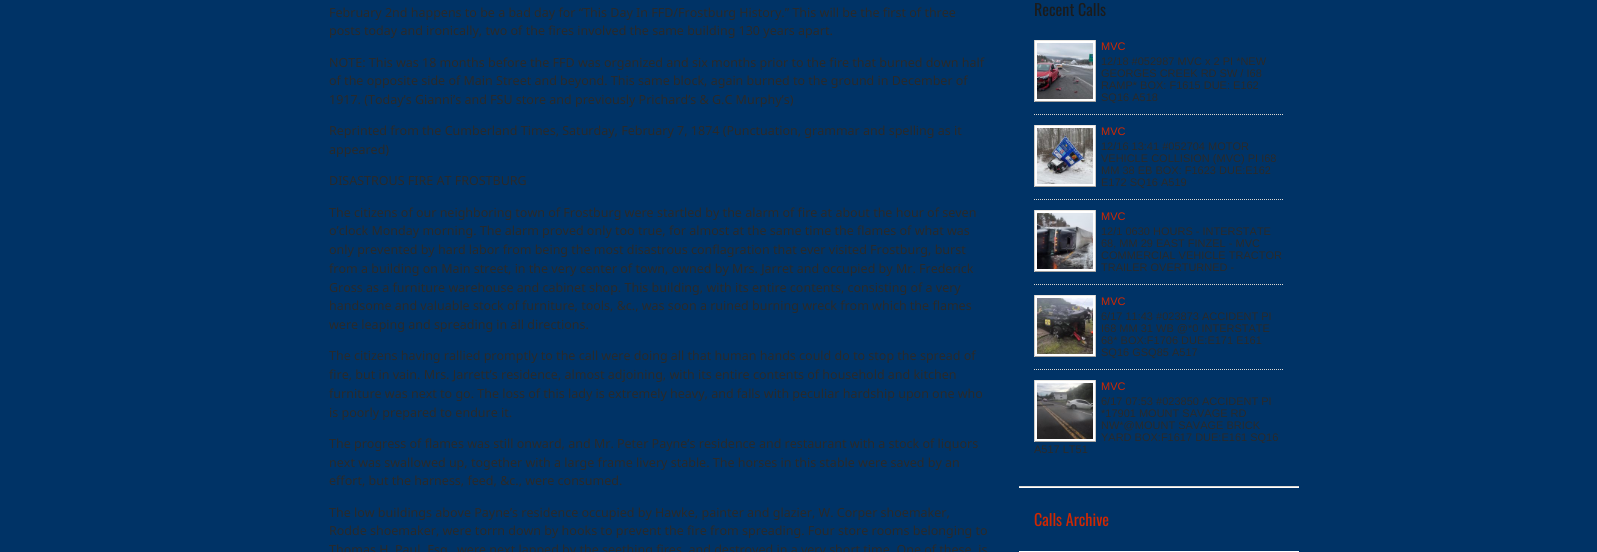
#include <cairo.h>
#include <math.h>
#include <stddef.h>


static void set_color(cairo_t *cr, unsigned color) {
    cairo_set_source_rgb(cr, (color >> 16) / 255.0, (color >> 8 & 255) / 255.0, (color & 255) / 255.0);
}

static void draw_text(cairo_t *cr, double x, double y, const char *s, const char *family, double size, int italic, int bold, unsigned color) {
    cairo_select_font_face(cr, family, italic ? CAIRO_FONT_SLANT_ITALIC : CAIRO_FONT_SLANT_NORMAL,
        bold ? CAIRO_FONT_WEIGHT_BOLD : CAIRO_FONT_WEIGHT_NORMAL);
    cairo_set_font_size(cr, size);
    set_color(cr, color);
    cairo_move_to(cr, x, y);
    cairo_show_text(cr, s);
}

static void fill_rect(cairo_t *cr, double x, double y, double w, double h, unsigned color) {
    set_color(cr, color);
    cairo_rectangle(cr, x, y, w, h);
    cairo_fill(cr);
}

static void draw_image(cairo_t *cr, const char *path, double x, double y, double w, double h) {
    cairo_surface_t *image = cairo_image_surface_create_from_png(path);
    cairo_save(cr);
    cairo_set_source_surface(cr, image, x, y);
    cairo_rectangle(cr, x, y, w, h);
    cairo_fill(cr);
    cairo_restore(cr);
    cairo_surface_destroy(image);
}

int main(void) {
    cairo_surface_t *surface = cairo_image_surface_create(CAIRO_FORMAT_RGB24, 1597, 552);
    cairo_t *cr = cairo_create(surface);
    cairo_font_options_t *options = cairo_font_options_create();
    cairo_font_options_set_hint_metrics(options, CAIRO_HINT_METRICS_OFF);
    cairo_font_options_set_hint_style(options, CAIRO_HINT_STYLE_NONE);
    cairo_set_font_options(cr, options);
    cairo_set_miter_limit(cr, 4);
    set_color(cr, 0x003366);
    cairo_paint(cr);
    draw_text(cr, 329, 17, "February 2nd happens to be a bad day for “This Day In FFD/Frostburg History.” This will be the first of three", "Noto Sans", 12.5, 0, 0, 0x292929);
    draw_text(cr, 329, 35, "posts today and ironically, two of the fires involved the same building 130 years apart.", "Noto Sans", 12.5, 0, 0, 0x292929);
    draw_text(cr, 329, 67, "NOTE: This was 18 months before the FFD was organized and six months prior to the fire that burned down half", "Noto Sans", 12.5, 0, 0, 0x292929);
    draw_text(cr, 329, 85, "of the opposite side of Main Street and beyond. This same block, again burned to the ground in December of", "Noto Sans", 12.5, 0, 0, 0x292929);
    draw_text(cr, 329, 104, "1917. (Today’s Gianni’s and FSU store and previously Prichard’s & G.C Murphy’s)", "Noto Sans", 12.5, 0, 0, 0x292929);
    draw_text(cr, 329, 135, "Reprinted from the Cumberland Times, Saturday, February 7, 1874 (Punctuation, grammar and spelling as it", "Noto Sans", 12.5, 0, 0, 0x292929);
    draw_text(cr, 329, 154, "appeared)", "Noto Sans", 12.5, 0, 0, 0x292929);
    draw_text(cr, 329, 185, "DISASTROUS FIRE AT FROSTBURG", "Noto Sans", 12.5, 0, 0, 0x292929);
    draw_text(cr, 329, 217, "The citizens of our neighboring town of Frostburg were startled by the alarm of fire at about the hour of seven", "Noto Sans", 12.5, 0, 0, 0x292929);
    draw_text(cr, 329, 235, "o’clock Monday morning. The alarm proved only too true, for almost at the same time the flames of what was", "Noto Sans", 12.5, 0, 0, 0x292929);
    draw_text(cr, 329, 254, "only prevented by hard labor from being the most disastrous conflagration that ever visited Frostburg, burst", "Noto Sans", 12.5, 0, 0, 0x292929);
    draw_text(cr, 329, 273, "from a building on Main street, in the very center of town, owned by Mrs. Jarret and occupied by Mr. Frederick", "Noto Sans", 12.5, 0, 0, 0x292929);
    draw_text(cr, 329, 292, "Gross as a furniture warehouse and cabinet shop. This building, with its entire contents, consisting of a very", "Noto Sans", 12.5, 0, 0, 0x292929);
    draw_text(cr, 329, 310, "handsome and valuable stock of furniture, tools, &c., was soon a ruined burning wreck from which the flames", "Noto Sans", 12.5, 0, 0, 0x292929);
    draw_text(cr, 329, 329, "were leaping and spreading in all directions.", "Noto Sans", 12.5, 0, 0, 0x292929);
    draw_text(cr, 329, 360, "The citizens having rallied promptly to the call were doing all that human hands could do to stop the spread of", "Noto Sans", 12.5, 0, 0, 0x292929);
    draw_text(cr, 329, 379, "fire, but in vain. Mrs. Jarrett’s residence, almost adjoining, with its entire contents of household and kitchen", "Noto Sans", 12.5, 0, 0, 0x292929);
    draw_text(cr, 329, 398, "furniture was next to go. The loss of this lady is extremely heavy, and falls with peculiar hardship upon one who", "Noto Sans", 12.5, 0, 0, 0x292929);
    draw_text(cr, 329, 417, "is poorly prepared to endure it.", "Noto Sans", 12.5, 0, 0, 0x292929);
    draw_text(cr, 329, 448, "The progress of flames was still onward, and Mr. Peter Payne’s residence and restaurant with a stock of liquors", "Noto Sans", 12.5, 0, 0, 0x292929);
    draw_text(cr, 329, 467, "next was swallowed up, together with a large frame livery stable. The horses in this stable were saved by an", "Noto Sans", 12.5, 0, 0, 0x292929);
    draw_text(cr, 329, 485, "effort, but the harness, feed, &c., were consumed.", "Noto Sans", 12.5, 0, 0, 0x292929);
    draw_text(cr, 329, 517, "The low buildings above Payne’s residence occupied by Hawke, painter and glazier, W. Corper shoemaker,", "Noto Sans", 12.5, 0, 0, 0x292929);
    draw_text(cr, 329, 535, "Rodde shoemaker, were torrn down by hooks to prevent the fire from spreading. Four store rooms belonging to", "Noto Sans", 12.5, 0, 0, 0x292929);
    draw_text(cr, 329, 554, "Thomas H. Paul, Esq", "Noto Sans", 12.5, 0, 0, 0x292929);
    draw_text(cr, 457, 554, "were next lapped by the seething fires, and destroyed in a very short time. One of these, is", "Noto Sans", 12.5, 0, 0, 0x292929);
    fill_rect(cr, 1019, 487, 280, 1, 0xFFFFFF);
    draw_text(cr, 1034, 16, "Recent Calls", "Oswald", 16, 0, 0, 0x1B1B1B);
    fill_rect(cr, 1035, 41, 60, 60, 0xFFFFFF);
    fill_rect(cr, 1034, 40, 62, 1, 0xE8E5E0);
    fill_rect(cr, 1095, 40, 1, 62, 0xCCC9C5);
    fill_rect(cr, 1034, 101, 62, 1, 0xA3A19E);
    fill_rect(cr, 1034, 40, 1, 62, 0xCCC9C5);
    draw_image(cr, "assets/img1.png", 1037, 43, 56, 56);
    draw_text(cr, 1101, 50, "MVC", "Liberation Sans", 11, 0, 0, 0xD02700);
    draw_text(cr, 1101, 65, "12/18 #052987 MVC x 2 PI *NEW", "Liberation Sans", 11, 0, 0, 0x292929);
    draw_text(cr, 1101, 77, "GEORGES CREEK RD SW / I68", "Liberation Sans", 11, 0, 0, 0x292929);
    draw_text(cr, 1101, 89, "RAMP* BOX: F1615 DUE: E162", "Liberation Sans", 11, 0, 0, 0x292929);
    draw_text(cr, 1101, 101, "SQ16 A518", "Liberation Sans", 11, 0, 0, 0x292929);
    cairo_new_path(cr);
    cairo_move_to(cr, 1034, 114.5);
    cairo_line_to(cr, 1284, 114.5);
    set_color(cr, 0xDCD8D2);
    cairo_set_line_width(cr, 1);
    cairo_set_dash(cr, (double[]){1, 1}, 2, 0);
    cairo_stroke(cr);
    fill_rect(cr, 1035, 126, 60, 60, 0xFFFFFF);
    fill_rect(cr, 1034, 125, 62, 1, 0xE8E5E0);
    fill_rect(cr, 1095, 125, 1, 62, 0xCCC9C5);
    fill_rect(cr, 1034, 186, 62, 1, 0xA3A19E);
    fill_rect(cr, 1034, 125, 1, 62, 0xCCC9C5);
    draw_image(cr, "assets/img2.png", 1037, 128, 56, 56);
    draw_text(cr, 1101, 135, "MVC", "Liberation Sans", 11, 0, 0, 0xD02700);
    draw_text(cr, 1101, 150, "12/16 13:41 #052704 MOTOR", "Liberation Sans", 11, 0, 0, 0x292929);
    draw_text(cr, 1101, 162, "VEHICLE COLLISION (MVC) PI I68", "Liberation Sans", 11, 0, 0, 0x292929);
    draw_text(cr, 1101, 174, "MM 38 EB BOX: F1623 DUE:E162", "Liberation Sans", 11, 0, 0, 0x292929);
    draw_text(cr, 1101, 186, "E172 SQ16 A519", "Liberation Sans", 11, 0, 0, 0x292929);
    cairo_new_path(cr);
    cairo_move_to(cr, 1034, 199.5);
    cairo_line_to(cr, 1284, 199.5);
    set_color(cr, 0xDCD8D2);
    cairo_stroke(cr);
    fill_rect(cr, 1035, 211, 60, 60, 0xFFFFFF);
    fill_rect(cr, 1034, 210, 62, 1, 0xE8E5E0);
    fill_rect(cr, 1095, 210, 1, 62, 0xCCC9C5);
    fill_rect(cr, 1034, 271, 62, 1, 0xA3A19E);
    fill_rect(cr, 1034, 210, 1, 62, 0xCCC9C5);
    draw_image(cr, "assets/img3.png", 1037, 213, 56, 56);
    draw_text(cr, 1101, 220, "MVC", "Liberation Sans", 11, 0, 0, 0xD02700);
    draw_text(cr, 1101, 235, "12/1 0630 HOURS - INTERSTATE", "Liberation Sans", 11, 0, 0, 0x292929);
    draw_text(cr, 1101, 247, "68, MM 29 EAST FINZEL - MVC", "Liberation Sans", 11, 0, 0, 0x292929);
    draw_text(cr, 1101, 259, "COMMERCIAL VEHICLE TRACTOR", "Liberation Sans", 11, 0, 0, 0x292929);
    draw_text(cr, 1101, 271, "TRAILER OVERTURNED -", "Liberation Sans", 11, 0, 0, 0x292929);
    cairo_new_path(cr);
    cairo_move_to(cr, 1034, 284.5);
    cairo_line_to(cr, 1284, 284.5);
    set_color(cr, 0xDCD8D2);
    cairo_stroke(cr);
    fill_rect(cr, 1035, 296, 60, 60, 0xFFFFFF);
    fill_rect(cr, 1034, 295, 62, 1, 0xE8E5E0);
    fill_rect(cr, 1095, 295, 1, 62, 0xCCC9C5);
    fill_rect(cr, 1034, 356, 62, 1, 0xA3A19E);
    fill_rect(cr, 1034, 295, 1, 62, 0xCCC9C5);
    draw_image(cr, "assets/img4.png", 1037, 298, 56, 56);
    draw_text(cr, 1101, 305, "MVC", "Liberation Sans", 11, 0, 0, 0xD02700);
    draw_text(cr, 1101, 320, "6/17 11:43 #023873 ACCIDENT PI", "Liberation Sans", 11, 0, 0, 0x292929);
    draw_text(cr, 1101, 332, "I68 MM 31 WB @*0 INTERSTATE", "Liberation Sans", 11, 0, 0, 0x292929);
    draw_text(cr, 1101, 344, "68* BOX:F1706 DUE:E171 E161", "Liberation Sans", 11, 0, 0, 0x292929);
    draw_text(cr, 1101, 356, "SQ16 GSQ85 A517", "Liberation Sans", 11, 0, 0, 0x292929);
    cairo_new_path(cr);
    cairo_move_to(cr, 1034, 369.5);
    cairo_line_to(cr, 1284, 369.5);
    set_color(cr, 0xDCD8D2);
    cairo_stroke(cr);
    fill_rect(cr, 1035, 381, 60, 60, 0xFFFFFF);
    fill_rect(cr, 1034, 380, 62, 1, 0xE8E5E0);
    fill_rect(cr, 1095, 380, 1, 62, 0xCCC9C5);
    fill_rect(cr, 1034, 441, 62, 1, 0xA3A19E);
    fill_rect(cr, 1034, 380, 1, 62, 0xCCC9C5);
    draw_image(cr, "assets/img5.png", 1037, 383, 56, 56);
    draw_text(cr, 1101, 390, "MVC", "Liberation Sans", 11, 0, 0, 0xD02700);
    draw_text(cr, 1101, 405, "6/17 07:53 #023850 ACCIDENT PI", "Liberation Sans", 11, 0, 0, 0x292929);
    draw_text(cr, 1101, 417, "*17901 MOUNT SAVAGE RD", "Liberation Sans", 11, 0, 0, 0x292929);
    draw_text(cr, 1101, 429, "NW*@MOUNT SAVAGE BRICK", "Liberation Sans", 11, 0, 0, 0x292929);
    draw_text(cr, 1101, 441, "YARD BOX:F1617 DUE:E161 SQ16", "Liberation Sans", 11, 0, 0, 0x292929);
    draw_text(cr, 1034, 453, "A517 LT51", "Liberation Sans", 11, 0, 0, 0x292929);
    fill_rect(cr, 1019, 486, 280, 1, 0xDCD8D2);
    fill_rect(cr, 1019, 551, 280, 1, 0xFFFFFF);
    draw_text(cr, 1034, 526, "Calls Archive", "Oswald", 16, 0, 0, 0xD02700);
    cairo_surface_write_to_png(surface, "output.png");
    cairo_font_options_destroy(options);
    cairo_destroy(cr);
    cairo_surface_destroy(surface);
    return 0;
}
